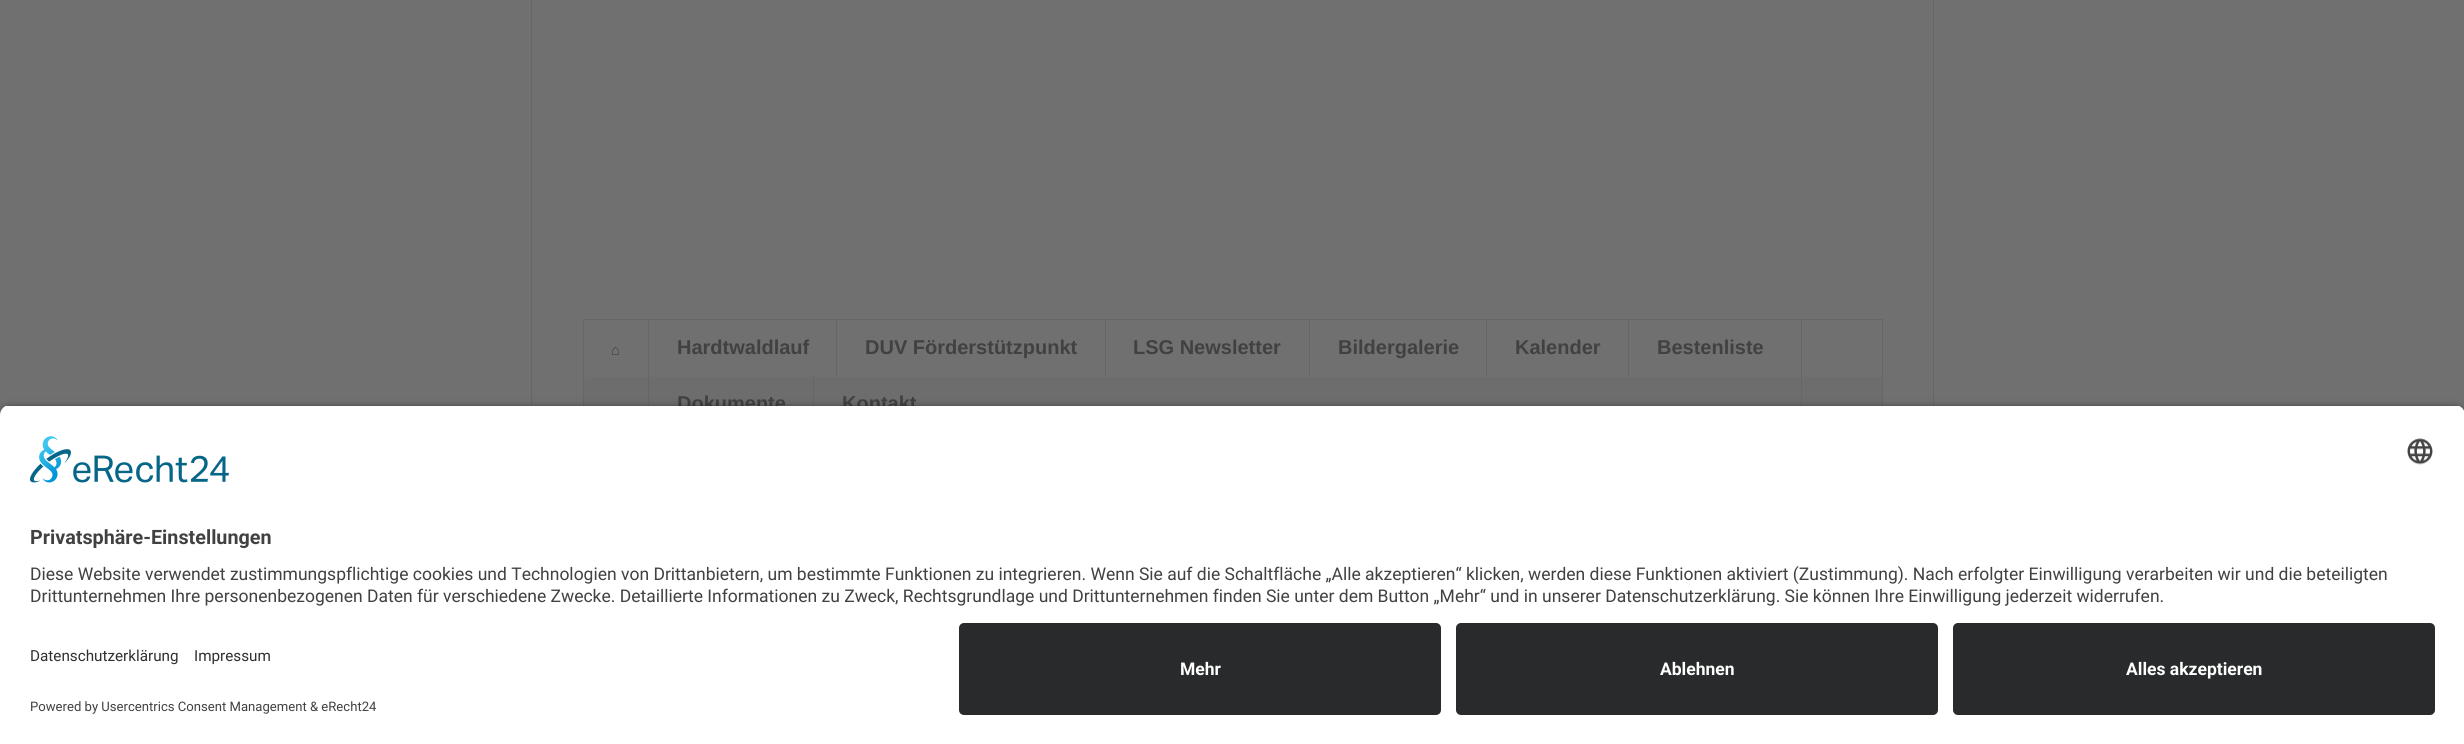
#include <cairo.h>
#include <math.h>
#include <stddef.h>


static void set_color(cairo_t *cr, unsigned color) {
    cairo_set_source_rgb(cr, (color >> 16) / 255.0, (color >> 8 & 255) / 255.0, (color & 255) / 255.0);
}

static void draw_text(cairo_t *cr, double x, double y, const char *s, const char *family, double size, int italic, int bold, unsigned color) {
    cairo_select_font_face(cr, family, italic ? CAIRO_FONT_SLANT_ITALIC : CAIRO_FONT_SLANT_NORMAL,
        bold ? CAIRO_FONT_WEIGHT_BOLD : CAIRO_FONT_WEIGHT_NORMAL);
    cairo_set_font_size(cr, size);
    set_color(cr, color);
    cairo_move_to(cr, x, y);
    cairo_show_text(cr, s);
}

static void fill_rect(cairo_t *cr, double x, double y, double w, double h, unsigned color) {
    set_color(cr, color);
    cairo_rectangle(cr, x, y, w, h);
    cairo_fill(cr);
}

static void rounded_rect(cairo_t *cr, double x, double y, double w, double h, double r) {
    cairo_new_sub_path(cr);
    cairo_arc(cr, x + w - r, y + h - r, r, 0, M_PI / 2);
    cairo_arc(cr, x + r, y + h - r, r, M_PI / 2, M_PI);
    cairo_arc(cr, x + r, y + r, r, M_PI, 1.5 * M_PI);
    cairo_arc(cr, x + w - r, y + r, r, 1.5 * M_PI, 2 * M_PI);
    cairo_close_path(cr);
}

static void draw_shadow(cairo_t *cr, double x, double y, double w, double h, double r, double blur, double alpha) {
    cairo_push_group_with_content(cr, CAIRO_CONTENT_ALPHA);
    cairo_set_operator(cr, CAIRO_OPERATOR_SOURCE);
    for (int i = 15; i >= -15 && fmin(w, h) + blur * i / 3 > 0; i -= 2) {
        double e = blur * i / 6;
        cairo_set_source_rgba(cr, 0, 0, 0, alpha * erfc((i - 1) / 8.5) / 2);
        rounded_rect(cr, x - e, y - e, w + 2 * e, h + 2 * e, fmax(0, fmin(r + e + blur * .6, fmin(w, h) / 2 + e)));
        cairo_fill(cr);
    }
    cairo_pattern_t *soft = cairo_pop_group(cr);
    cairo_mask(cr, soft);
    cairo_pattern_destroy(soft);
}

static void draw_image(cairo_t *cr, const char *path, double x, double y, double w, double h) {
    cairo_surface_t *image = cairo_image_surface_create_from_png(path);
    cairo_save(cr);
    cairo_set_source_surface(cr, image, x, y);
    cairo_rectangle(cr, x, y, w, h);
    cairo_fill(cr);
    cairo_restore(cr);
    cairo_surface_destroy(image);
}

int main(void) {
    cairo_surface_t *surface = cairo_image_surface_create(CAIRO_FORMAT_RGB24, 2464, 744);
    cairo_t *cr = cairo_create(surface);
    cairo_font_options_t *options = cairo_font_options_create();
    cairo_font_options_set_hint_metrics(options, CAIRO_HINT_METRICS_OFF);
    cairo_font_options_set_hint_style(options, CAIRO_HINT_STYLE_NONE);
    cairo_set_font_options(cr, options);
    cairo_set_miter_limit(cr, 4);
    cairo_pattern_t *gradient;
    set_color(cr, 0x707070);
    cairo_paint(cr);
    fill_rect(cr, 1933, 0, 1, 406, 0x666666);
    fill_rect(cr, 531, 0, 1, 406, 0x666666);
    gradient = cairo_pattern_create_linear(1233, 320, 1233, 433);
    cairo_pattern_add_color_stop_rgba(gradient, 0, 0.435, 0.435, 0.435, 1);
    cairo_pattern_add_color_stop_rgba(gradient, 1, 0.424, 0.424, 0.424, 1);
    cairo_set_source(cr, gradient);
    cairo_pattern_destroy(gradient);
    cairo_rectangle(cr, 584, 377, 1298, 29);
    cairo_fill(cr);
    cairo_rectangle(cr, 583.5, 319.5, 1299, 114);
    set_color(cr, 0x666666);
    cairo_set_line_width(cr, 1);
    cairo_stroke(cr);
    fill_rect(cr, 584, 377, 1, 3, 0x707070);
    draw_text(cr, 611, 355, "⌂", "Liberation Serif", 15, 0, 0, 0x414141);
    fill_rect(cr, 648, 320, 1, 86, 0x666666);
    draw_text(cr, 677, 354, "Hardtwaldlauf", "Liberation Sans", 20, 0, 1, 0x414141);
    fill_rect(cr, 836, 320, 1, 56, 0x666666);
    draw_text(cr, 865, 354, "DUV Förderstützpunkt", "Liberation Sans", 20, 0, 1, 0x414141);
    fill_rect(cr, 1105, 320, 1, 56, 0x666666);
    draw_text(cr, 1133, 354, "LSG Newsletter", "Liberation Sans", 20, 0, 1, 0x414141);
    fill_rect(cr, 1309, 320, 1, 56, 0x666666);
    draw_text(cr, 1338, 354, "Bildergalerie", "Liberation Sans", 20, 0, 1, 0x414141);
    fill_rect(cr, 1486, 320, 1, 56, 0x666666);
    draw_text(cr, 1515, 354, "Kalender", "Liberation Sans", 20, 0, 1, 0x414141);
    fill_rect(cr, 1628, 320, 1, 56, 0x666666);
    draw_text(cr, 1657, 354, "Bestenliste", "Liberation Sans", 20, 0, 1, 0x414141);
    draw_text(cr, 677, 410, "Dokumente", "Liberation Sans", 20, 0, 1, 0x414141);
    fill_rect(cr, 813, 376, 1, 30, 0x666666);
    draw_text(cr, 842, 410, "Kontakt", "Liberation Sans", 20, 0, 1, 0x414141);
    fill_rect(cr, 1801, 320, 1, 86, 0x666666);
    set_color(cr, 0x000000);
    draw_shadow(cr, 0, 409, 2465, 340, 10, 4.5, 0.8);
    cairo_save(cr);
    cairo_new_path(cr);
    cairo_move_to(cr, 10, 405);
    cairo_line_to(cr, 2455, 405);
    cairo_curve_to(cr, 2460.5, 405, 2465, 409.5, 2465, 415);
    cairo_line_to(cr, 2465, 613);
    cairo_line_to(cr, 0, 613);
    cairo_line_to(cr, 0, 415);
    cairo_curve_to(cr, 0, 409.5, 4.5, 405, 10, 405);
    cairo_close_path(cr);
    cairo_clip(cr);
    fill_rect(cr, 0, 406, 2464, 207, 0xFFFFFF);
    cairo_restore(cr);
    draw_image(cr, "assets/img1.png", 30, 436, 199, 47);
    draw_image(cr, "assets/img2.png", 2407, 438, 26, 27);
    draw_text(cr, 30, 544, "Privatsphäre-Einstellungen", "Roboto", 19.75, 0, 1, 0x414141);
    draw_text(cr, 30, 580, "Diese Website verwendet zustimmungspflichtige cookies und Technologien von Drittanbietern, um bestimmte Funktionen zu integrieren. Wenn Sie auf die Schaltfläche „Alle akzeptieren“ klicken, werden diese Funktionen aktiviert (Zustimmung). Nach erfolgter Einwilligung verarbeiten wir und die beteiligten", "Roboto", 17.5, 0, 0, 0x414141);
    draw_text(cr, 30, 602, "Drittunternehmen Ihre personenbezogenen Daten für verschiedene Zwecke. Detaillierte Informationen zu Zweck, Rechtsgrundlage und Drittunternehmen finden Sie unter dem Button „Mehr“ und in unserer Datenschutzerklärung. Sie können Ihre Einwilligung jederzeit widerrufen.", "Roboto", 17.5, 0, 0, 0x414141);
    fill_rect(cr, 0, 613, 2464, 131, 0xFFFFFF);
    draw_text(cr, 30, 661, "Datenschutzerklärung", "Roboto", 15.25, 0, 0, 0x303030);
    draw_text(cr, 194, 661, "Impressum", "Roboto", 15.25, 0, 0, 0x303030);
    draw_text(cr, 30, 711, "Powered by Usercentrics Consent Management & eRecht24", "Roboto", 13.1, 0, 0, 0x414141);
    set_color(cr, 0x292A2B);
    rounded_rect(cr, 959, 623, 482, 92, 5);
    cairo_fill(cr);
    draw_text(cr, 1180, 675, "Mehr", "Roboto", 17.5, 0, 1, 0xFFFFFF);
    set_color(cr, 0x292A2B);
    rounded_rect(cr, 1456, 623, 482, 92, 5);
    cairo_fill(cr);
    draw_text(cr, 1660, 675, "Ablehnen", "Roboto", 17.5, 0, 1, 0xFFFFFF);
    set_color(cr, 0x292A2B);
    rounded_rect(cr, 1953, 623, 482, 92, 5);
    cairo_fill(cr);
    draw_text(cr, 2126, 675, "Alles akzeptieren", "Roboto", 17.5, 0, 1, 0xFFFFFF);
    cairo_surface_write_to_png(surface, "output.png");
    cairo_font_options_destroy(options);
    cairo_destroy(cr);
    cairo_surface_destroy(surface);
    return 0;
}
